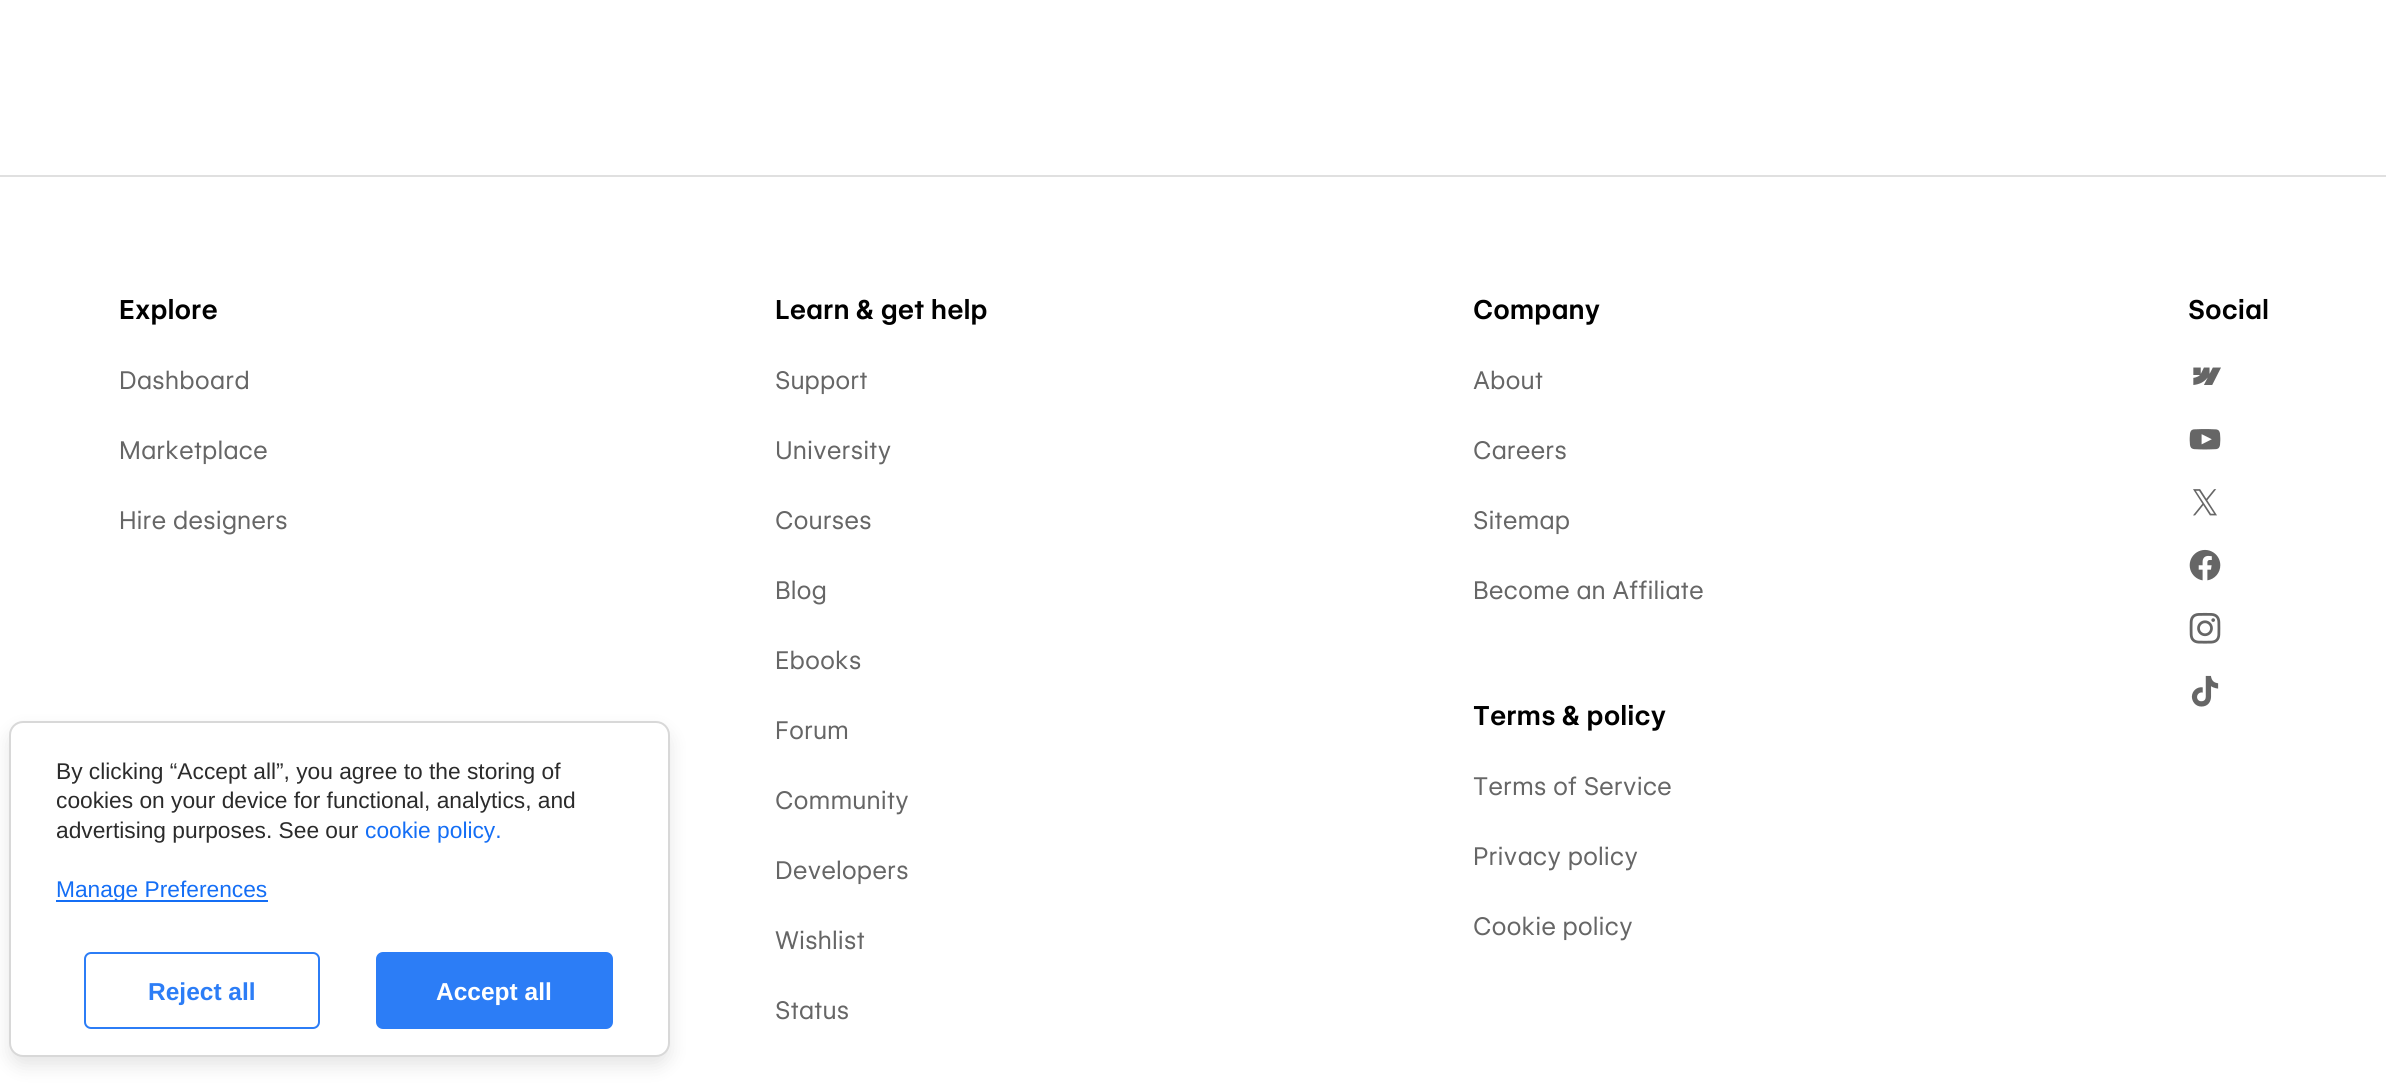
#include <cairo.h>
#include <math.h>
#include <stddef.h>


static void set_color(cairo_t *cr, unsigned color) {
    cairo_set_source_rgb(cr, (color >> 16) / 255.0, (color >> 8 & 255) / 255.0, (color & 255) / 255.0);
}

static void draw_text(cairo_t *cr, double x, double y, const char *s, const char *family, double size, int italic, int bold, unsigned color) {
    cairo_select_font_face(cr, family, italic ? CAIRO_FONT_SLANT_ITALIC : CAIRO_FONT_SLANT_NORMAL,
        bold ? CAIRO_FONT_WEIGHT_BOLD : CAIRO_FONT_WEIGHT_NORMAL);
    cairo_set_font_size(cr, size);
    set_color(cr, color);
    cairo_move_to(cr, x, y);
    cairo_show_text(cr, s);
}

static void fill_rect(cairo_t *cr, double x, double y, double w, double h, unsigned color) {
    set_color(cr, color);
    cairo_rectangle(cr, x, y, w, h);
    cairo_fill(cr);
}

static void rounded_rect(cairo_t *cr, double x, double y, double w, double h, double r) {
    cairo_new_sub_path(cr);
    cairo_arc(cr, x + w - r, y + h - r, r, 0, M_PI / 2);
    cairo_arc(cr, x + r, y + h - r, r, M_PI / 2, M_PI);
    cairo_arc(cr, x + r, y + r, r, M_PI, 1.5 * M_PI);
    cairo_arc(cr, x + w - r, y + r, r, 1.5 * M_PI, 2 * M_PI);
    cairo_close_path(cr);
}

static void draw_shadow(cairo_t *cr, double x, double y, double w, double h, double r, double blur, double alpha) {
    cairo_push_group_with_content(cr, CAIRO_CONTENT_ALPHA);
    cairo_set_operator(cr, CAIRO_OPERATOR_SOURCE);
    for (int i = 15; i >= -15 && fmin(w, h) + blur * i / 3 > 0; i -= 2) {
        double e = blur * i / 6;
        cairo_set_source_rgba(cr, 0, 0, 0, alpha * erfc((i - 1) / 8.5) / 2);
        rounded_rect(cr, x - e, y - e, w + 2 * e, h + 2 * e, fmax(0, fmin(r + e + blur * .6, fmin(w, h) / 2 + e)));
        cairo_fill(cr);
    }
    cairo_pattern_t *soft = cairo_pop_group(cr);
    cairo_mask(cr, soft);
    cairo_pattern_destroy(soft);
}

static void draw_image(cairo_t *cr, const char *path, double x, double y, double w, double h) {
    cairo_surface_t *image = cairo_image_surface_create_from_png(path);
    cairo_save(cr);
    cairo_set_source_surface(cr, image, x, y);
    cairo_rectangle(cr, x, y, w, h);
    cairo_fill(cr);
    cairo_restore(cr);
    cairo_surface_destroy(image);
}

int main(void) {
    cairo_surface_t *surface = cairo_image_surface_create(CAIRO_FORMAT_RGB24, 2386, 1083);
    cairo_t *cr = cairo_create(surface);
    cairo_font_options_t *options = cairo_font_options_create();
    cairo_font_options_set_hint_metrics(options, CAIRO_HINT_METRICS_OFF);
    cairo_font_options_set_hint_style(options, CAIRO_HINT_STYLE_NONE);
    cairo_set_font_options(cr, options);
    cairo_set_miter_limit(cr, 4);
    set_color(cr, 0xFFFFFF);
    cairo_paint(cr);
    fill_rect(cr, 0, 175, 2386, 2, 0xE0E0E0);
    draw_text(cr, 119, 319, "Explore", "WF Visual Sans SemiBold", 26.25, 0, 0, 0x000000);
    draw_text(cr, 119, 389, "Dashboard", "WF Visual Sans", 24.5, 0, 0, 0x666666);
    draw_text(cr, 119, 459, "Marketplace", "WF Visual Sans", 24.5, 0, 0, 0x666666);
    draw_text(cr, 119, 529, "Hire designers", "WF Visual Sans", 24.5, 0, 0, 0x666666);
    draw_text(cr, 775, 319, "Learn & get help", "WF Visual Sans SemiBold", 26.25, 0, 0, 0x000000);
    draw_text(cr, 775, 389, "Support", "WF Visual Sans", 24.5, 0, 0, 0x666666);
    draw_text(cr, 775, 459, "University", "WF Visual Sans", 24.5, 0, 0, 0x666666);
    draw_text(cr, 775, 529, "Courses", "WF Visual Sans", 24.5, 0, 0, 0x666666);
    draw_text(cr, 775, 599, "Blog", "WF Visual Sans", 24.5, 0, 0, 0x666666);
    draw_text(cr, 775, 669, "Ebooks", "WF Visual Sans", 24.5, 0, 0, 0x666666);
    draw_text(cr, 775, 739, "Forum", "WF Visual Sans", 24.5, 0, 0, 0x666666);
    draw_text(cr, 775, 809, "Community", "WF Visual Sans", 24.5, 0, 0, 0x666666);
    draw_text(cr, 775, 879, "Developers", "WF Visual Sans", 24.5, 0, 0, 0x666666);
    draw_text(cr, 775, 949, "Wishlist", "WF Visual Sans", 24.5, 0, 0, 0x666666);
    draw_text(cr, 775, 1019, "Status", "WF Visual Sans", 24.5, 0, 0, 0x666666);
    draw_text(cr, 1473, 319, "Company", "WF Visual Sans SemiBold", 26.25, 0, 0, 0x000000);
    draw_text(cr, 1473, 389, "About", "WF Visual Sans", 24.5, 0, 0, 0x666666);
    draw_text(cr, 1473, 459, "Careers", "WF Visual Sans", 24.5, 0, 0, 0x666666);
    draw_text(cr, 1473, 529, "Sitemap", "WF Visual Sans", 24.5, 0, 0, 0x666666);
    draw_text(cr, 1473, 599, "Become an Affiliate", "WF Visual Sans", 24.5, 0, 0, 0x666666);
    draw_text(cr, 1473, 725, "Terms & policy", "WF Visual Sans SemiBold", 26.25, 0, 0, 0x000000);
    draw_text(cr, 1473, 795, "Terms of Service", "WF Visual Sans", 24.5, 0, 0, 0x666666);
    draw_text(cr, 1473, 865, "Privacy policy", "WF Visual Sans", 24.5, 0, 0, 0x666666);
    draw_text(cr, 1473, 935, "Cookie policy", "WF Visual Sans", 24.5, 0, 0, 0x666666);
    draw_text(cr, 2188, 319, "Social", "WF Visual Sans SemiBold", 26.25, 0, 0, 0x000000);
    draw_image(cr, "assets/img1.png", 2193, 367, 28, 18);
    draw_image(cr, "assets/img2.png", 2189, 429, 32, 21);
    draw_image(cr, "assets/img3.png", 2193, 489, 24, 27);
    draw_image(cr, "assets/img4.png", 2189, 549, 32, 32);
    draw_image(cr, "assets/img5.png", 2189, 612, 32, 32);
    draw_image(cr, "assets/img6.png", 2191, 675, 28, 32);
    set_color(cr, 0x000000);
    draw_shadow(cr, 9, 730, 661, 336, 14, 9, 0.1);
    set_color(cr, 0xFFFFFF);
    rounded_rect(cr, 10, 722, 659, 334, 13);
    cairo_fill_preserve(cr);
    set_color(cr, 0xD8D8D8);
    cairo_stroke(cr);
    draw_text(cr, 56, 779, "By clicking “Accept all”, you agree to the storing of", "Liberation Sans", 22.75, 0, 0, 0x2B2B2B);
    draw_text(cr, 56, 808, "cookies on your device for functional, analytics, and", "Liberation Sans", 22.75, 0, 0, 0x2B2B2B);
    draw_text(cr, 56, 838, "advertising purposes. See our", "Liberation Sans", 22.75, 0, 0, 0x2B2B2B);
    draw_text(cr, 365, 838, "cookie policy.", "Liberation Sans", 22.75, 0, 0, 0x146EF5);
    fill_rect(cr, 56, 900, 212, 2, 0x146EF5);
    draw_text(cr, 56, 897, "Manage Preferences", "Liberation Sans", 22.75, 0, 0, 0x146EF5);
    rounded_rect(cr, 85, 953, 234, 75, 6);
    set_color(cr, 0x2C7DF6);
    cairo_stroke(cr);
    draw_text(cr, 148, 1000, "Reject all", "Liberation Sans", 24.5, 0, 1, 0x2C7DF6);
    rounded_rect(cr, 377, 953, 235, 75, 6);
    cairo_fill_preserve(cr);
    cairo_stroke(cr);
    draw_text(cr, 436, 1000, "Accept all", "Liberation Sans", 24.5, 0, 1, 0xFFFFFF);
    cairo_surface_write_to_png(surface, "output.png");
    cairo_font_options_destroy(options);
    cairo_destroy(cr);
    cairo_surface_destroy(surface);
    return 0;
}
